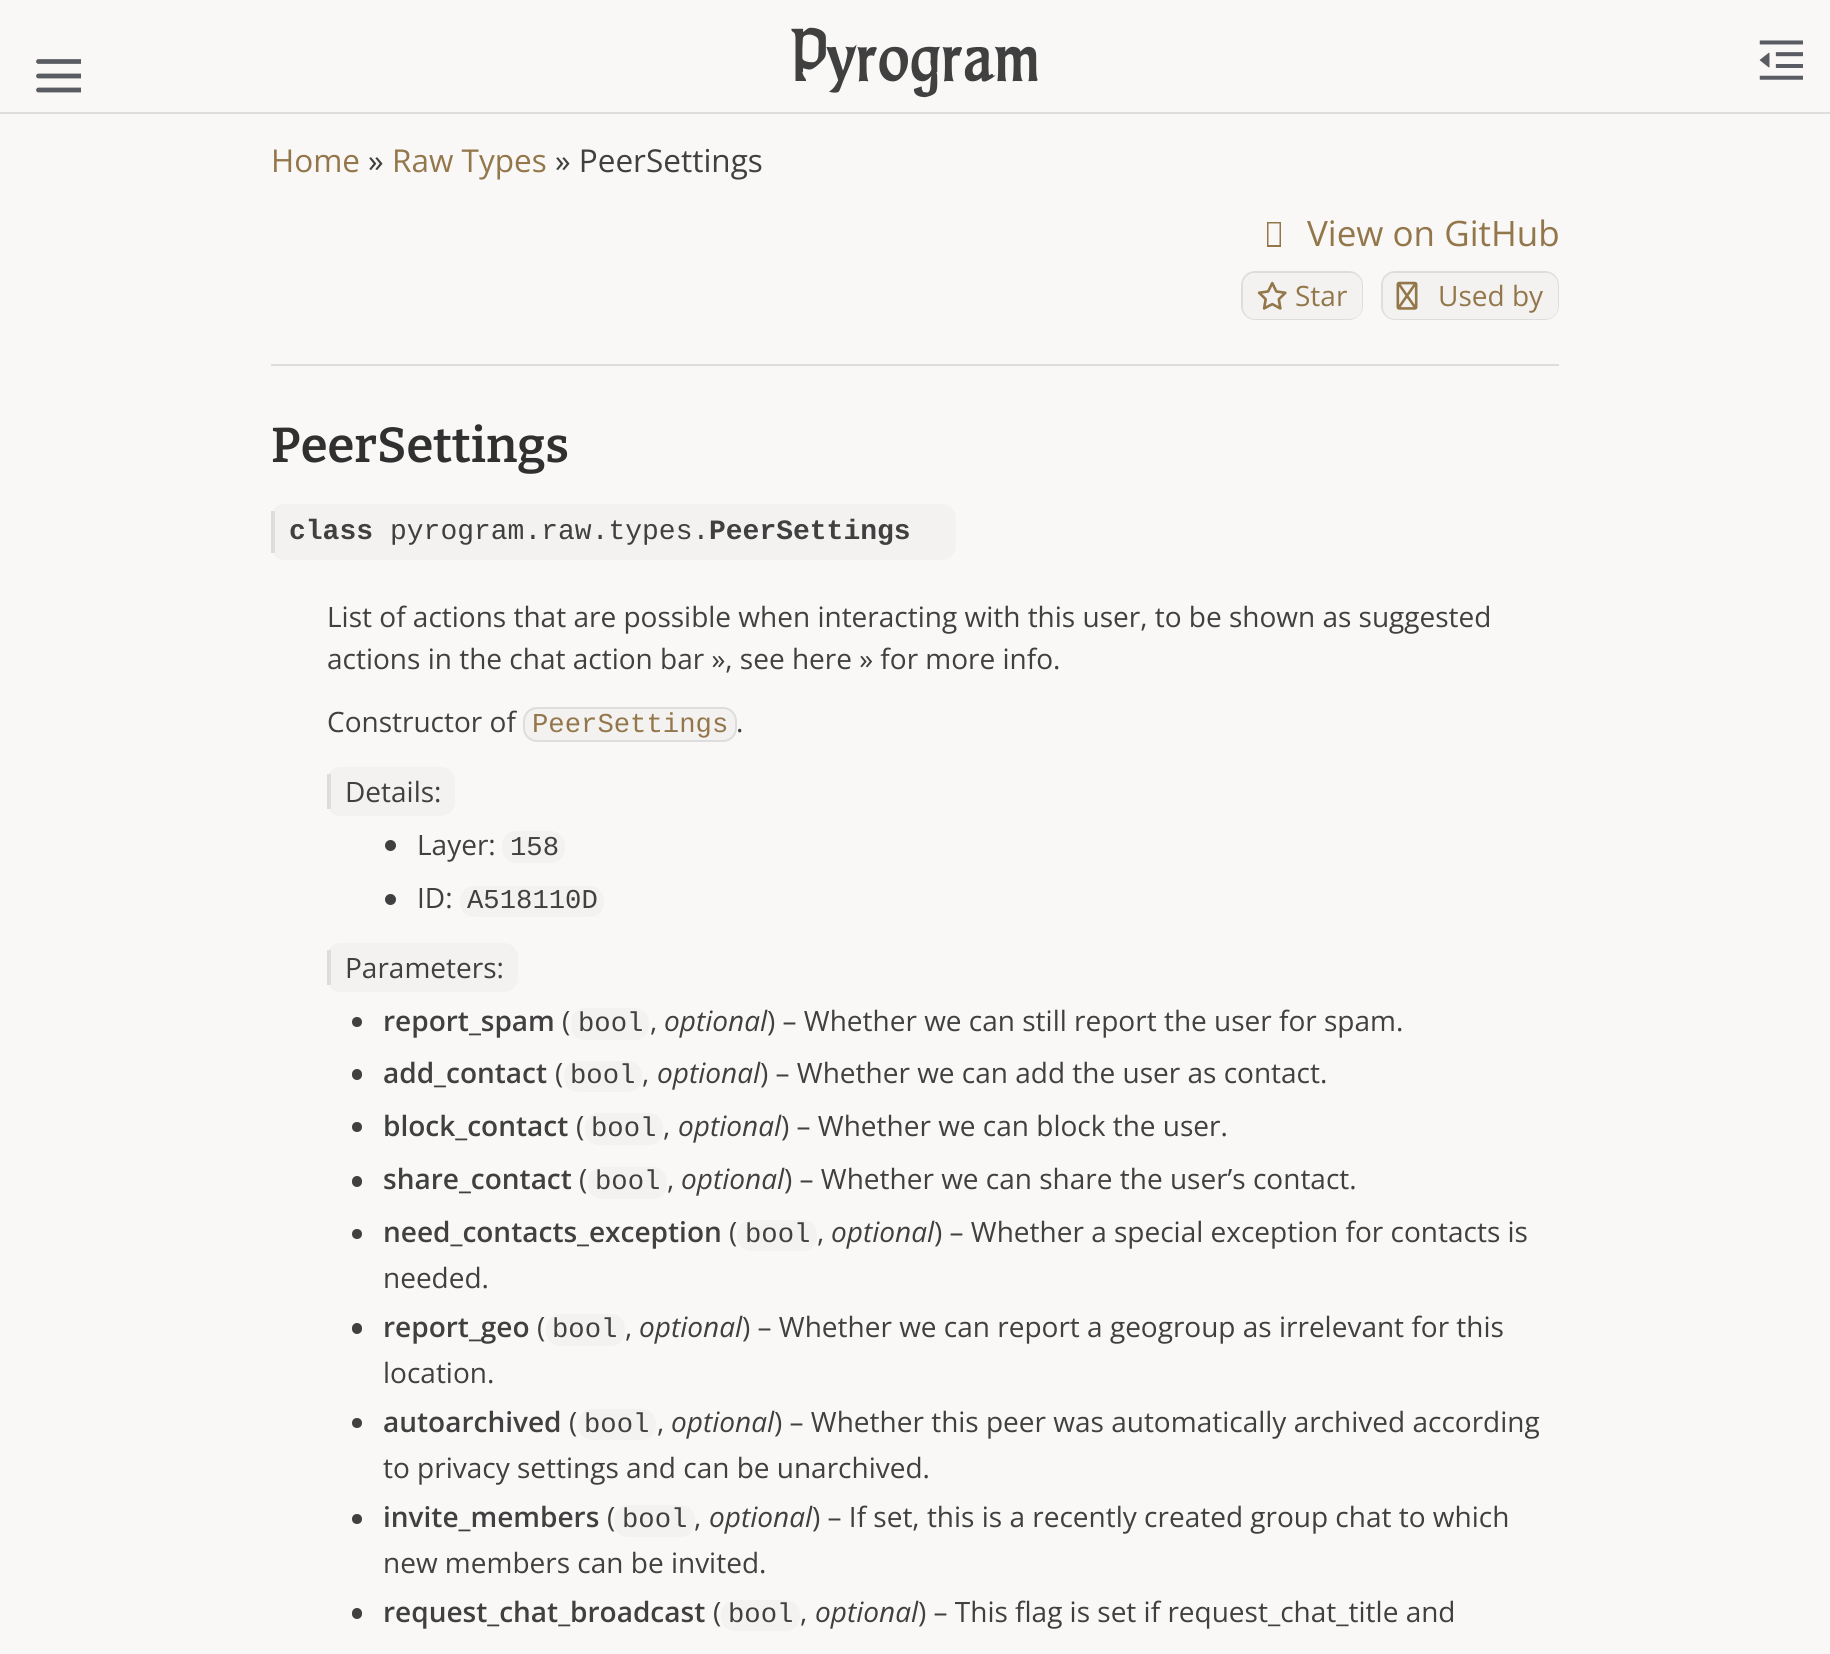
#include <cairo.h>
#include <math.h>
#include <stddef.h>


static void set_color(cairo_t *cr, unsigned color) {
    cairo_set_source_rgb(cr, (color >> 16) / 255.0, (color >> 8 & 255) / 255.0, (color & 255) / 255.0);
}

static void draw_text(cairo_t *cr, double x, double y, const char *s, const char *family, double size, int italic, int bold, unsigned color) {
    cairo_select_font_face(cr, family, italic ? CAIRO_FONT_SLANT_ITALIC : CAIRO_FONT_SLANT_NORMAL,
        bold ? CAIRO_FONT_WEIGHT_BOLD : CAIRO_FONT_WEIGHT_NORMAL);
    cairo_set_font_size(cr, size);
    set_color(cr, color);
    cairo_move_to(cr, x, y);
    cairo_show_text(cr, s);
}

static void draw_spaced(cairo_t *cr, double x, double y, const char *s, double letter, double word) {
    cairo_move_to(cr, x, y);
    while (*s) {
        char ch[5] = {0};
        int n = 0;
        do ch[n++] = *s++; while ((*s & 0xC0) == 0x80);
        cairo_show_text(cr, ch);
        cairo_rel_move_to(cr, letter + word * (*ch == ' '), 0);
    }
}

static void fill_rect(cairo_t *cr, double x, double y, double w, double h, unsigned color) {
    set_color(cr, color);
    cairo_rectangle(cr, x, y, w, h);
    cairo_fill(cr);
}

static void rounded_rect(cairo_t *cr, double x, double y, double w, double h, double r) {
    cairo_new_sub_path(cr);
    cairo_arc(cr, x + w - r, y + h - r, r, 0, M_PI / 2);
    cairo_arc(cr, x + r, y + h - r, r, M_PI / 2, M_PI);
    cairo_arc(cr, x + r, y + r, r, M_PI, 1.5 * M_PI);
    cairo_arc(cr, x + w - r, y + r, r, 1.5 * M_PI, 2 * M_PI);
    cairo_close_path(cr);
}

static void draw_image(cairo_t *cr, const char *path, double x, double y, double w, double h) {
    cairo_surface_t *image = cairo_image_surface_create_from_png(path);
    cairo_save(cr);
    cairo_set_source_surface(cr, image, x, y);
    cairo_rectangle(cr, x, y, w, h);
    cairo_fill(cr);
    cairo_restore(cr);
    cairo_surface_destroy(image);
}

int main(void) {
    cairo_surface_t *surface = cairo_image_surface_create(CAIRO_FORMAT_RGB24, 1830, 1654);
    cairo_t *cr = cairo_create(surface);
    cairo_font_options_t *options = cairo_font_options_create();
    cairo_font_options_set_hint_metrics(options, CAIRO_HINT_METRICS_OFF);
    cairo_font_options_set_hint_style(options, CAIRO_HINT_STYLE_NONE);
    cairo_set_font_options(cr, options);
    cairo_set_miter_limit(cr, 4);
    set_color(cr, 0xF9F8F7);
    cairo_paint(cr);
    fill_rect(cr, 0, 112, 1830, 2, 0xDDDDDD);
    cairo_save(cr);
    cairo_rectangle(cr, 32, 47, 49, 49);
    cairo_clip(cr);
    cairo_new_path(cr);
    cairo_move_to(cr, 38.5, 76);
    cairo_line_to(cr, 81.5, 76);
    cairo_move_to(cr, 38.5, 61.5);
    cairo_line_to(cr, 81.5, 61.5);
    cairo_move_to(cr, 38.5, 90);
    cairo_line_to(cr, 81.5, 90);
    set_color(cr, 0x5A5C63);
    cairo_set_line_width(cr, 4.8);
    cairo_set_line_cap(cr, CAIRO_LINE_CAP_ROUND);
    cairo_set_line_join(cr, CAIRO_LINE_JOIN_ROUND);
    cairo_stroke(cr);
    cairo_restore(cr);
    cairo_select_font_face(cr, "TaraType", CAIRO_FONT_SLANT_NORMAL, CAIRO_FONT_WEIGHT_BOLD);
    cairo_set_font_size(cr, 66.5);
    set_color(cr, 0x404040);
    draw_spaced(cr, 790, 81, "Pyrogram", 2.75, 0);
    draw_image(cr, "assets/img1.png", 1759, 40, 44, 40);
    draw_text(cr, 271, 172, "Home", "Open Sans", 31.5, 0, 0, 0x93774B);
    draw_text(cr, 368, 172, "»", "Open Sans", 31.5, 0, 0, 0x404040);
    draw_text(cr, 392, 172, "Raw Types", "Open Sans", 31.5, 0, 0, 0x93774B);
    draw_text(cr, 555, 172, "» PeerSettings", "Open Sans", 31.5, 0, 0, 0x404040);
    set_color(cr, 0x93774B);
    cairo_new_path(cr);
    cairo_move_to(cr, 1267, 247);
    cairo_line_to(cr, 1267, 222);
    cairo_line_to(cr, 1281, 222);
    cairo_line_to(cr, 1281, 247);
    cairo_close_path(cr);
    cairo_move_to(cr, 1268.5, 245);
    cairo_line_to(cr, 1279.5, 245);
    cairo_line_to(cr, 1279.5, 223.5);
    cairo_line_to(cr, 1268.5, 223.5);
    cairo_close_path(cr);
    cairo_fill(cr);
    draw_text(cr, 1307, 246, "View on GitHub", "Open Sans", 35, 0, 0, 0x93774B);
    rounded_rect(cr, 1242, 272, 120, 47, 13);
    set_color(cr, 0xDDDDDD);
    cairo_stroke(cr);
    set_color(cr, 0xF3F2F1);
    rounded_rect(cr, 1243, 273, 119, 46, 12);
    cairo_fill(cr);
    draw_image(cr, "assets/img2.png", 1257, 281, 30, 29);
    draw_text(cr, 1295, 306, "Star", "Open Sans", 28, 0, 0, 0x93774B);
    rounded_rect(cr, 1382, 272, 176, 47, 13);
    set_color(cr, 0xDDDDDD);
    cairo_stroke(cr);
    set_color(cr, 0xF3F2F1);
    rounded_rect(cr, 1383, 273, 175, 46, 12);
    cairo_fill(cr);
    draw_image(cr, "assets/img3.png", 1396, 281, 22, 29);
    draw_text(cr, 1438, 306, "Used by", "Open Sans", 28, 0, 0, 0x93774B);
    fill_rect(cr, 271, 364, 1288, 2, 0xDDDDDD);
    draw_text(cr, 271, 462, "PeerSettings", "Bitter SemiBold", 49, 0, 0, 0x303030);
    set_color(cr, 0xF3F2F1);
    rounded_rect(cr, 271, 504, 685, 56, 14);
    cairo_fill(cr);
    fill_rect(cr, 271, 511, 4, 42, 0xDDDDDD);
    draw_text(cr, 289, 539, "class", "Liberation Mono", 28, 0, 1, 0x404040);
    draw_text(cr, 390, 539, "pyrogram.raw.types.", "Liberation Mono", 28, 0, 0, 0x404040);
    draw_text(cr, 709, 539, "PeerSettings", "Liberation Mono", 28, 0, 1, 0x404040);
    draw_text(cr, 327, 627, "List of actions that are possible when interacting with this user, to be shown as suggested", "Open Sans", 28, 0, 0, 0x404040);
    draw_text(cr, 327, 669, "actions in the chat action bar », see here » for more info.", "Open Sans", 28, 0, 0, 0x404040);
    draw_text(cr, 327, 732, "Constructor of", "Open Sans", 28, 0, 0, 0x404040);
    set_color(cr, 0xF3F2F1);
    rounded_rect(cr, 524, 708, 212, 33, 13);
    cairo_fill_preserve(cr);
    set_color(cr, 0xDDDDDD);
    cairo_stroke(cr);
    draw_text(cr, 532, 732, "PeerSettings", "Liberation Mono", 27.25, 0, 0, 0x93774B);
    draw_text(cr, 736, 732, ".", "Open Sans", 28, 0, 0, 0x404040);
    set_color(cr, 0xF3F2F1);
    rounded_rect(cr, 327, 767, 128, 49, 14);
    cairo_fill(cr);
    fill_rect(cr, 327, 774, 4, 35, 0xDDDDDD);
    draw_text(cr, 345, 802, "Details:", "Open Sans", 28, 0, 0, 0x404040);
    cairo_new_path(cr);
    cairo_arc(cr, 390.5, 845.5, 5.5, 0, 2 * M_PI);
    cairo_fill(cr);
    draw_text(cr, 417, 855, "Layer:", "Open Sans", 28, 0, 0, 0x404040);
    set_color(cr, 0xF3F2F1);
    rounded_rect(cr, 502, 831, 63, 32, 14);
    cairo_fill(cr);
    draw_text(cr, 510, 855, "158", "Liberation Mono", 27.25, 0, 0, 0x404040);
    cairo_new_path(cr);
    cairo_arc(cr, 390.5, 899.5, 5.5, 0, 2 * M_PI);
    cairo_fill(cr);
    draw_text(cr, 417, 908, "ID:", "Open Sans", 28, 0, 0, 0x404040);
    set_color(cr, 0xF3F2F1);
    rounded_rect(cr, 460, 886, 144, 31, 14);
    cairo_fill(cr);
    draw_text(cr, 467, 908, "A518110D", "Liberation Mono", 27.25, 0, 0, 0x404040);
    set_color(cr, 0xF3F2F1);
    rounded_rect(cr, 327, 943, 191, 49, 14);
    cairo_fill(cr);
    fill_rect(cr, 327, 950, 4, 35, 0xDDDDDD);
    draw_text(cr, 345, 978, "Parameters:", "Open Sans", 28, 0, 0, 0x404040);
    cairo_new_path(cr);
    cairo_arc(cr, 357, 1022, 5, 0, 2 * M_PI);
    cairo_fill(cr);
    draw_text(cr, 383, 1031, "report_spam", "Open Sans SemiBold", 28, 0, 0, 0x404040);
    draw_text(cr, 562, 1031, "(", "Open Sans", 28, 0, 0, 0x404040);
    set_color(cr, 0xF3F2F1);
    rounded_rect(cr, 571, 1008, 78, 32, 14);
    cairo_fill(cr);
    draw_text(cr, 578, 1031, "bool", "Liberation Mono", 27.25, 0, 0, 0x404040);
    draw_text(cr, 650, 1031, ",", "Open Sans", 28, 0, 0, 0x404040);
    draw_text(cr, 664, 1031, "optional", "Open Sans", 28, 1, 0, 0x404040);
    draw_text(cr, 767, 1031, ") – Whether we can still report the user for spam.", "Open Sans", 28, 0, 0, 0x404040);
    rounded_rect(cr, 352, 1069, 10, 11, 5);
    cairo_fill(cr);
    draw_text(cr, 383, 1083, "add_contact", "Open Sans SemiBold", 28, 0, 0, 0x404040);
    draw_text(cr, 555, 1083, "(", "Open Sans", 28, 0, 0, 0x404040);
    set_color(cr, 0xF3F2F1);
    rounded_rect(cr, 564, 1061, 78, 31, 14);
    cairo_fill(cr);
    draw_text(cr, 570, 1083, "bool", "Liberation Mono", 27.25, 0, 0, 0x404040);
    draw_text(cr, 642, 1083, ",", "Open Sans", 28, 0, 0, 0x404040);
    draw_text(cr, 657, 1083, "optional", "Open Sans", 28, 1, 0, 0x404040);
    draw_text(cr, 760, 1083, ") – Whether we can add the user as contact.", "Open Sans", 28, 0, 0, 0x404040);
    cairo_new_path(cr);
    cairo_arc(cr, 357, 1127, 5, 0, 2 * M_PI);
    cairo_fill(cr);
    draw_text(cr, 383, 1136, "block_contact", "Open Sans SemiBold", 28, 0, 0, 0x404040);
    draw_text(cr, 576, 1136, "(", "Open Sans", 28, 0, 0, 0x404040);
    set_color(cr, 0xF3F2F1);
    rounded_rect(cr, 585, 1113, 78, 32, 14);
    cairo_fill(cr);
    draw_text(cr, 591, 1136, "bool", "Liberation Mono", 27.25, 0, 0, 0x404040);
    draw_text(cr, 663, 1136, ",", "Open Sans", 28, 0, 0, 0x404040);
    draw_text(cr, 678, 1136, "optional", "Open Sans", 28, 1, 0, 0x404040);
    draw_text(cr, 781, 1136, ") – Whether we can block the user.", "Open Sans", 28, 0, 0, 0x404040);
    rounded_rect(cr, 352, 1176, 10, 11, 5);
    cairo_fill(cr);
    draw_text(cr, 383, 1189, "share_contact", "Open Sans SemiBold", 28, 0, 0, 0x404040);
    draw_text(cr, 579, 1189, "(", "Open Sans", 28, 0, 0, 0x404040);
    set_color(cr, 0xF3F2F1);
    rounded_rect(cr, 588, 1167, 79, 32, 14);
    cairo_fill(cr);
    draw_text(cr, 595, 1189, "bool", "Liberation Mono", 27.25, 0, 0, 0x404040);
    draw_text(cr, 667, 1189, ",", "Open Sans", 28, 0, 0, 0x404040);
    draw_text(cr, 681, 1189, "optional", "Open Sans", 28, 1, 0, 0x404040);
    draw_text(cr, 784, 1189, ") – Whether we can share the user’s contact.", "Open Sans", 28, 0, 0, 0x404040);
    cairo_new_path(cr);
    cairo_arc(cr, 357, 1234, 5, 0, 2 * M_PI);
    cairo_fill(cr);
    draw_text(cr, 383, 1242, "need_contacts_exception", "Open Sans SemiBold", 28, 0, 0, 0x404040);
    draw_text(cr, 729, 1242, "(", "Open Sans", 28, 0, 0, 0x404040);
    set_color(cr, 0xF3F2F1);
    rounded_rect(cr, 737, 1220, 80, 31, 14);
    cairo_fill(cr);
    draw_text(cr, 745, 1242, "bool", "Liberation Mono", 27.25, 0, 0, 0x404040);
    draw_text(cr, 817, 1242, ",", "Open Sans", 28, 0, 0, 0x404040);
    draw_text(cr, 831, 1242, "optional", "Open Sans", 28, 1, 0, 0x404040);
    draw_text(cr, 934, 1242, ") – Whether a special exception for contacts is", "Open Sans", 28, 0, 0, 0x404040);
    draw_text(cr, 383, 1288, "needed.", "Open Sans", 28, 0, 0, 0x404040);
    rounded_rect(cr, 352, 1323, 10, 11, 5);
    cairo_fill(cr);
    draw_text(cr, 383, 1337, "report_geo", "Open Sans SemiBold", 28, 0, 0, 0x404040);
    draw_text(cr, 537, 1337, "(", "Open Sans", 28, 0, 0, 0x404040);
    set_color(cr, 0xF3F2F1);
    rounded_rect(cr, 546, 1314, 79, 32, 14);
    cairo_fill(cr);
    draw_text(cr, 552, 1337, "bool", "Liberation Mono", 27.25, 0, 0, 0x404040);
    draw_text(cr, 625, 1337, ",", "Open Sans", 28, 0, 0, 0x404040);
    draw_text(cr, 639, 1337, "optional", "Open Sans", 28, 1, 0, 0x404040);
    draw_text(cr, 742, 1337, ") – Whether we can report a geogroup as irrelevant for this", "Open Sans", 28, 0, 0, 0x404040);
    draw_text(cr, 383, 1383, "location.", "Open Sans", 28, 0, 0, 0x404040);
    cairo_new_path(cr);
    cairo_arc(cr, 357, 1423, 5, 0, 2 * M_PI);
    cairo_fill(cr);
    draw_text(cr, 383, 1432, "autoarchived", "Open Sans SemiBold", 28, 0, 0, 0x404040);
    draw_text(cr, 569, 1432, "(", "Open Sans", 28, 0, 0, 0x404040);
    set_color(cr, 0xF3F2F1);
    rounded_rect(cr, 578, 1409, 78, 31, 14);
    cairo_fill(cr);
    draw_text(cr, 584, 1432, "bool", "Liberation Mono", 27.25, 0, 0, 0x404040);
    draw_text(cr, 657, 1432, ",", "Open Sans", 28, 0, 0, 0x404040);
    draw_text(cr, 671, 1432, "optional", "Open Sans", 28, 1, 0, 0x404040);
    draw_text(cr, 774, 1432, ") – Whether this peer was automatically archived according", "Open Sans", 28, 0, 0, 0x404040);
    draw_text(cr, 383, 1478, "to privacy settings and can be unarchived.", "Open Sans", 28, 0, 0, 0x404040);
    cairo_new_path(cr);
    cairo_arc(cr, 357, 1519, 5, 0, 2 * M_PI);
    cairo_fill(cr);
    draw_text(cr, 383, 1527, "invite_members", "Open Sans SemiBold", 28, 0, 0, 0x404040);
    draw_text(cr, 607, 1527, "(", "Open Sans", 28, 0, 0, 0x404040);
    set_color(cr, 0xF3F2F1);
    rounded_rect(cr, 614, 1505, 81, 32, 14);
    cairo_fill(cr);
    draw_text(cr, 622, 1527, "bool", "Liberation Mono", 27.25, 0, 0, 0x404040);
    draw_text(cr, 694, 1527, ",", "Open Sans", 28, 0, 0, 0x404040);
    draw_text(cr, 709, 1527, "optional", "Open Sans", 28, 1, 0, 0x404040);
    draw_text(cr, 812, 1527, ") – If set, this is a recently created group chat to which", "Open Sans", 28, 0, 0, 0x404040);
    draw_text(cr, 383, 1573, "new members can be invited.", "Open Sans", 28, 0, 0, 0x404040);
    rounded_rect(cr, 352, 1608, 10, 11, 5);
    cairo_fill(cr);
    draw_text(cr, 383, 1622, "request_chat_broadcast", "Open Sans SemiBold", 28, 0, 0, 0x404040);
    draw_text(cr, 713, 1622, "(", "Open Sans", 28, 0, 0, 0x404040);
    set_color(cr, 0xF3F2F1);
    rounded_rect(cr, 721, 1600, 79, 31, 14);
    cairo_fill(cr);
    draw_text(cr, 728, 1622, "bool", "Liberation Mono", 27.25, 0, 0, 0x404040);
    draw_text(cr, 800, 1622, ",", "Open Sans", 28, 0, 0, 0x404040);
    draw_text(cr, 815, 1622, "optional", "Open Sans", 28, 1, 0, 0x404040);
    draw_text(cr, 918, 1622, ") – This flag is set if request_chat_title and", "Open Sans", 28, 0, 0, 0x404040);
    cairo_surface_write_to_png(surface, "output.png");
    cairo_font_options_destroy(options);
    cairo_destroy(cr);
    cairo_surface_destroy(surface);
    return 0;
}
